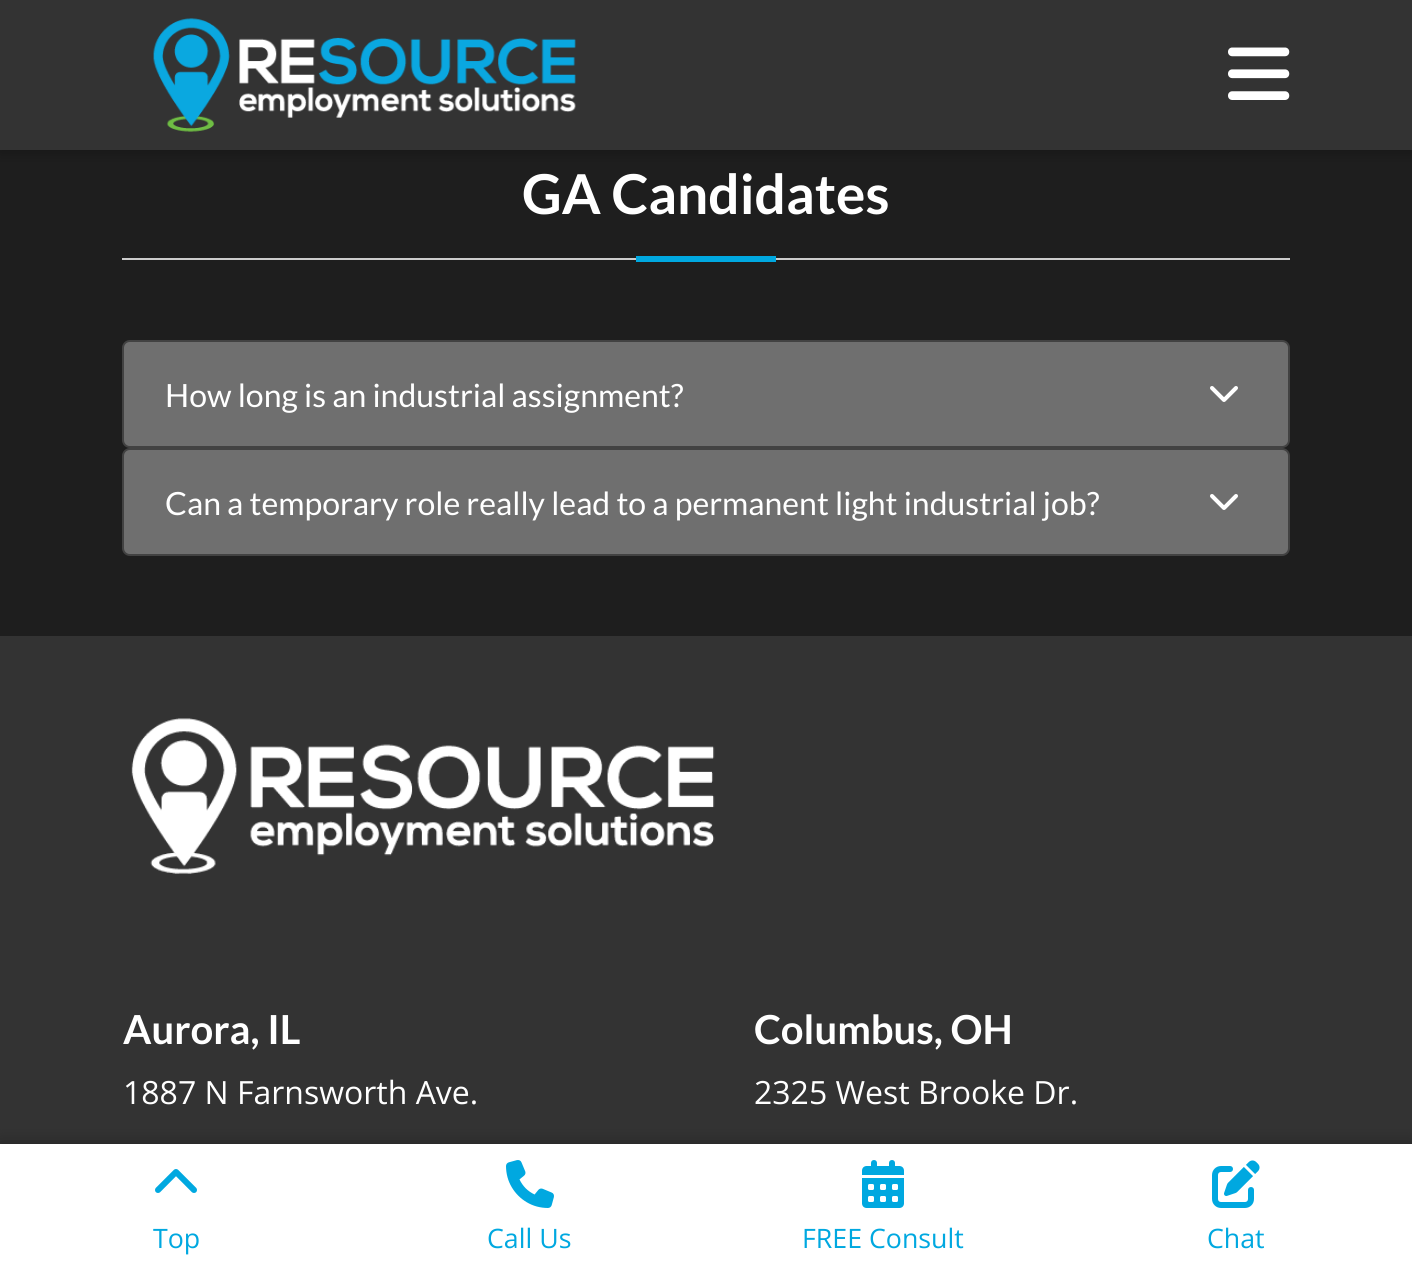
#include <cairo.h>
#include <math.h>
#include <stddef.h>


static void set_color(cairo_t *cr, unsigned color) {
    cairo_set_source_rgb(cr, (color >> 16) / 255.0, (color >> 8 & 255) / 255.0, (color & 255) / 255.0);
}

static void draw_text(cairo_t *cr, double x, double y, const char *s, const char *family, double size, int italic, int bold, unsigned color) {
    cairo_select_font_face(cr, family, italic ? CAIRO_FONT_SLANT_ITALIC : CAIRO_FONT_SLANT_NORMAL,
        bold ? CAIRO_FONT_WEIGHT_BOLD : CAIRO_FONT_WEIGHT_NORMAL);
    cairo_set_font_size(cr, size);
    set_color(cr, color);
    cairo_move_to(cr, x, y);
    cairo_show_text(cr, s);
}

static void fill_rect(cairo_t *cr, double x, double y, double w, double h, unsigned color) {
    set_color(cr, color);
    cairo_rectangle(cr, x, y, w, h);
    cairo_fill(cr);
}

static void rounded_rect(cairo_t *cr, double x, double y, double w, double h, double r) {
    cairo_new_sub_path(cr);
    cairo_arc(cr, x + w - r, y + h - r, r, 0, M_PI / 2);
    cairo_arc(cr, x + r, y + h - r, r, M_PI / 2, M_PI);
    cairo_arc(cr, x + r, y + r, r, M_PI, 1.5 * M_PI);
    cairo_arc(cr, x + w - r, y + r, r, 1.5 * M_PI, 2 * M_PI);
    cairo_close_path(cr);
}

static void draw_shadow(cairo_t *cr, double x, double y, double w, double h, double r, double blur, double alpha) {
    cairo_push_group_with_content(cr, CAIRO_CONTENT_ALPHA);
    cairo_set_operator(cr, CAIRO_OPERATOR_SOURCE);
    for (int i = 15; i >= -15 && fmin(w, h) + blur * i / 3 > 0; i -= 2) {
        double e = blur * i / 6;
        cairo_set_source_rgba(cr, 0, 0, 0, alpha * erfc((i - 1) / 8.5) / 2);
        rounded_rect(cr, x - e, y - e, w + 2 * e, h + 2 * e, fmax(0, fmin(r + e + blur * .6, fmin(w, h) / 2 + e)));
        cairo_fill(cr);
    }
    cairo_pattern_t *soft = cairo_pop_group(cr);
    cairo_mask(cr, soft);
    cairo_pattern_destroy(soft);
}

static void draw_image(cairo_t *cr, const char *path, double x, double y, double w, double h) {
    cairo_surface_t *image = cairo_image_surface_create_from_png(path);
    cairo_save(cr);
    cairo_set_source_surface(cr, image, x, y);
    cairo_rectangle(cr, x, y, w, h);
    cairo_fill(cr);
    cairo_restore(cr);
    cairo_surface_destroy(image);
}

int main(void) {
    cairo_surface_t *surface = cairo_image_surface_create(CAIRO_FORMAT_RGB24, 1412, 1263);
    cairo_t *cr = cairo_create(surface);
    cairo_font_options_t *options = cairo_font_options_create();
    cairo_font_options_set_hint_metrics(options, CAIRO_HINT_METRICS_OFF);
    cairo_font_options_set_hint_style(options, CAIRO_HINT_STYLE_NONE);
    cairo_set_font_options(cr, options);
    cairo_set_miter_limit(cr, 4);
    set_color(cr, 0x1E1E1E);
    cairo_paint(cr);
    set_color(cr, 0x000000);
    draw_shadow(cr, 0, 0, 1412, 150, 0, 8, 0.35);
    fill_rect(cr, 0, 0, 1412, 150, 0x333333);
    draw_image(cr, "assets/img1.png", 153, 18, 423, 114);
    draw_image(cr, "assets/img2.png", 1228, 47, 62, 53);
    fill_rect(cr, 122, 258, 1168, 2, 0xCCCCCC);
    draw_text(cr, 522, 214, "GA Candidates", "Lato", 55, 0, 1, 0xFFFFFF);
    fill_rect(cr, 636, 256, 140, 6, 0x00A8E0);
    set_color(cr, 0x4B4B4B);
    rounded_rect(cr, 122, 340, 1168, 108, 8);
    cairo_fill(cr);
    rounded_rect(cr, 123, 341, 1166, 106, 7);
    cairo_set_source_rgba(cr, 0, 0, 0, 0.12);
    cairo_stroke(cr);
    set_color(cr, 0x6F6F6F);
    rounded_rect(cr, 124, 342, 1164, 104, 6);
    cairo_fill(cr);
    draw_text(cr, 165, 407, "How long is an industrial assignment?", "Lato", 32, 0, 0, 0xFFFFFF);
    draw_image(cr, "assets/img3.png", 1210, 386, 28, 16);
    set_color(cr, 0x4B4B4B);
    rounded_rect(cr, 122, 448, 1168, 108, 8);
    cairo_fill(cr);
    rounded_rect(cr, 123, 449, 1166, 106, 7);
    cairo_set_source_rgba(cr, 0, 0, 0, 0.12);
    cairo_stroke(cr);
    set_color(cr, 0x6F6F6F);
    rounded_rect(cr, 124, 450, 1164, 104, 6);
    cairo_fill(cr);
    draw_text(cr, 165, 515, "Can a temporary role really lead to a permanent light industrial job?", "Lato", 32, 0, 0, 0xFFFFFF);
    draw_image(cr, "assets/img3.png", 1210, 494, 28, 16);
    fill_rect(cr, 0, 636, 1412, 508, 0x333333);
    draw_image(cr, "assets/img4.png", 131, 718, 584, 156);
    draw_text(cr, 123, 1044, "Aurora, IL", "Lato", 40, 0, 1, 0xFFFFFF);
    draw_text(cr, 123, 1104, "1887 N Farnsworth Ave.", "Open Sans", 32, 0, 0, 0xFFFFFF);
    draw_text(cr, 754, 1044, "Columbus, OH", "Lato", 40, 0, 1, 0xFFFFFF);
    draw_text(cr, 754, 1104, "2325 West Brooke Dr.", "Open Sans", 32, 0, 0, 0xFFFFFF);
    set_color(cr, 0x000000);
    draw_shadow(cr, 0, 1144, 1412, 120, 0, 8, 0.35);
    fill_rect(cr, 0, 1144, 1412, 119, 0xFFFFFF);
    draw_image(cr, "assets/img5.png", 155, 1169, 42, 24);
    draw_text(cr, 153, 1248, "Top", "Open Sans", 26.75, 0, 0, 0x00A8E0);
    draw_image(cr, "assets/img6.png", 506, 1160, 48, 48);
    draw_text(cr, 487, 1248, "Call Us", "Open Sans", 26.75, 0, 0, 0x00A8E0);
    draw_image(cr, "assets/img7.png", 862, 1160, 42, 48);
    draw_text(cr, 802, 1248, "FREE Consult", "Open Sans", 26.75, 0, 0, 0x00A8E0);
    draw_image(cr, "assets/img8.png", 1212, 1160, 48, 48);
    draw_text(cr, 1207, 1248, "Chat", "Open Sans", 26.75, 0, 0, 0x00A8E0);
    cairo_surface_write_to_png(surface, "output.png");
    cairo_font_options_destroy(options);
    cairo_destroy(cr);
    cairo_surface_destroy(surface);
    return 0;
}
